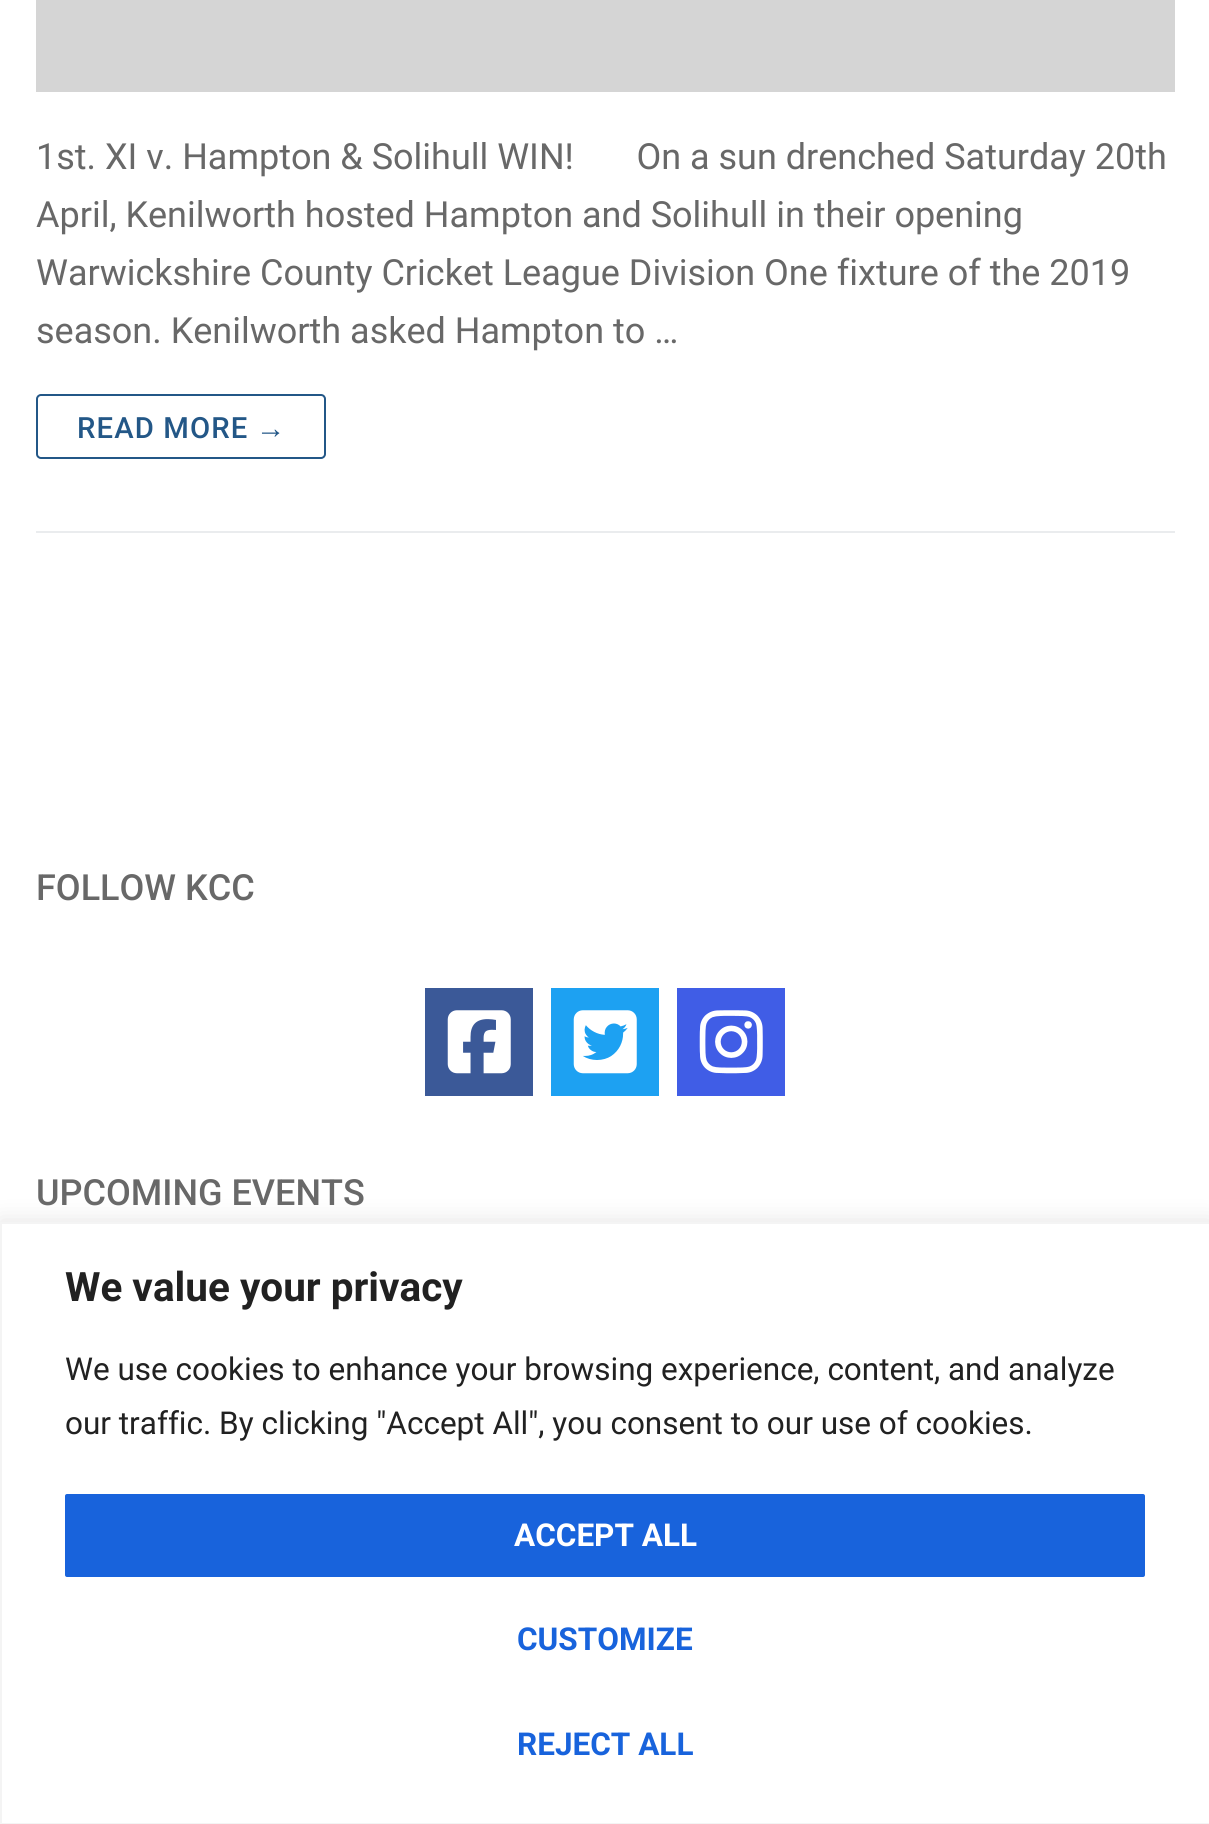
#include <cairo.h>
#include <math.h>
#include <stddef.h>


static void set_color(cairo_t *cr, unsigned color) {
    cairo_set_source_rgb(cr, (color >> 16) / 255.0, (color >> 8 & 255) / 255.0, (color & 255) / 255.0);
}

static void draw_text(cairo_t *cr, double x, double y, const char *s, const char *family, double size, int italic, int bold, unsigned color) {
    cairo_select_font_face(cr, family, italic ? CAIRO_FONT_SLANT_ITALIC : CAIRO_FONT_SLANT_NORMAL,
        bold ? CAIRO_FONT_WEIGHT_BOLD : CAIRO_FONT_WEIGHT_NORMAL);
    cairo_set_font_size(cr, size);
    set_color(cr, color);
    cairo_move_to(cr, x, y);
    cairo_show_text(cr, s);
}

static void draw_spaced(cairo_t *cr, double x, double y, const char *s, double letter, double word) {
    cairo_move_to(cr, x, y);
    while (*s) {
        char ch[5] = {0};
        int n = 0;
        do ch[n++] = *s++; while ((*s & 0xC0) == 0x80);
        cairo_show_text(cr, ch);
        cairo_rel_move_to(cr, letter + word * (*ch == ' '), 0);
    }
}

static void fill_rect(cairo_t *cr, double x, double y, double w, double h, unsigned color) {
    set_color(cr, color);
    cairo_rectangle(cr, x, y, w, h);
    cairo_fill(cr);
}

static void rounded_rect(cairo_t *cr, double x, double y, double w, double h, double r) {
    cairo_new_sub_path(cr);
    cairo_arc(cr, x + w - r, y + h - r, r, 0, M_PI / 2);
    cairo_arc(cr, x + r, y + h - r, r, M_PI / 2, M_PI);
    cairo_arc(cr, x + r, y + r, r, M_PI, 1.5 * M_PI);
    cairo_arc(cr, x + w - r, y + r, r, 1.5 * M_PI, 2 * M_PI);
    cairo_close_path(cr);
}

static void draw_shadow(cairo_t *cr, double x, double y, double w, double h, double r, double blur, double alpha) {
    cairo_push_group_with_content(cr, CAIRO_CONTENT_ALPHA);
    cairo_set_operator(cr, CAIRO_OPERATOR_SOURCE);
    for (int i = 15; i >= -15 && fmin(w, h) + blur * i / 3 > 0; i -= 2) {
        double e = blur * i / 6;
        cairo_set_source_rgba(cr, 0, 0, 0, alpha * erfc((i - 1) / 8.5) / 2);
        rounded_rect(cr, x - e, y - e, w + 2 * e, h + 2 * e, fmax(0, fmin(r + e + blur * .6, fmin(w, h) / 2 + e)));
        cairo_fill(cr);
    }
    cairo_pattern_t *soft = cairo_pop_group(cr);
    cairo_mask(cr, soft);
    cairo_pattern_destroy(soft);
}

static void draw_image(cairo_t *cr, const char *path, double x, double y, double w, double h) {
    cairo_surface_t *image = cairo_image_surface_create_from_png(path);
    cairo_save(cr);
    cairo_set_source_surface(cr, image, x, y);
    cairo_rectangle(cr, x, y, w, h);
    cairo_fill(cr);
    cairo_restore(cr);
    cairo_surface_destroy(image);
}

int main(void) {
    cairo_surface_t *surface = cairo_image_surface_create(CAIRO_FORMAT_RGB24, 1209, 1824);
    cairo_t *cr = cairo_create(surface);
    cairo_font_options_t *options = cairo_font_options_create();
    cairo_font_options_set_hint_metrics(options, CAIRO_HINT_METRICS_OFF);
    cairo_font_options_set_hint_style(options, CAIRO_HINT_STYLE_NONE);
    cairo_set_font_options(cr, options);
    cairo_set_miter_limit(cr, 4);
    set_color(cr, 0xFFFFFF);
    cairo_paint(cr);
    fill_rect(cr, 36, 531, 1139, 2, 0xEAECEE);
    fill_rect(cr, 36, 0, 1139, 92, 0xD5D5D5);
    draw_text(cr, 36, 169, "1st. XI v. Hampton & Solihull WIN!       On a sun drenched Saturday 20th", "Roboto", 36, 0, 0, 0x686868);
    draw_text(cr, 36, 227, "April, Kenilworth hosted Hampton and Solihull in their opening", "Roboto", 36, 0, 0, 0x686868);
    draw_text(cr, 36, 285, "Warwickshire County Cricket League Division One fixture of the 2019", "Roboto", 36, 0, 0, 0x686868);
    draw_text(cr, 36, 343, "season. Kenilworth asked Hampton to …", "Roboto", 36, 0, 0, 0x686868);
    rounded_rect(cr, 37, 395, 288, 63, 4);
    set_color(cr, 0x235787);
    cairo_stroke(cr);
    cairo_select_font_face(cr, "Roboto Medium", CAIRO_FONT_SLANT_NORMAL, CAIRO_FONT_WEIGHT_NORMAL);
    cairo_set_font_size(cr, 29.25);
    draw_spaced(cr, 77, 438, "READ MORE", 1.1, 0);
    cairo_select_font_face(cr, "Liberation Sans", CAIRO_FONT_SLANT_NORMAL, CAIRO_FONT_WEIGHT_NORMAL);
    draw_spaced(cr, 256, 438, "→", 1.1, 0);
    draw_text(cr, 36, 900, "FOLLOW KCC", "Roboto Medium", 36, 0, 0, 0x686868);
    fill_rect(cr, 425, 988, 108, 108, 0x3B5998);
    draw_image(cr, "assets/img1.png", 447, 1010, 64, 64);
    fill_rect(cr, 551, 988, 108, 108, 0x1DA1F2);
    draw_image(cr, "assets/img2.png", 573, 1010, 64, 64);
    fill_rect(cr, 677, 988, 108, 108, 0x405DE6);
    draw_image(cr, "assets/img3.png", 699, 1010, 64, 64);
    draw_text(cr, 36, 1205, "UPCOMING EVENTS", "Roboto Medium", 36, 0, 0, 0x686868);
    set_color(cr, 0xACABAB);
    draw_shadow(cr, 0, 1220, 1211, 603, 0, 11, 0.3);
    set_color(cr, 0xFFFFFF);
    cairo_rectangle(cr, 1, 1223, 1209, 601);
    cairo_fill_preserve(cr);
    set_color(cr, 0xF4F4F4);
    cairo_stroke(cr);
    draw_text(cr, 65, 1301, "We value your privacy", "Roboto", 40.5, 0, 1, 0x212121);
    draw_text(cr, 65, 1380, "We use cookies to enhance your browsing experience, content, and analyze", "Roboto", 31.5, 0, 0, 0x212121);
    draw_text(cr, 65, 1434, "our traffic. By clicking \"Accept All\", you consent to our use of cookies.", "Roboto", 31.5, 0, 0, 0x212121);
    set_color(cr, 0x1863DC);
    rounded_rect(cr, 65, 1494, 1080, 83, 2);
    cairo_fill(cr);
    draw_text(cr, 514, 1546, "ACCEPT ALL", "Roboto", 31.5, 0, 1, 0xFFFFFF);
    draw_text(cr, 517, 1650, "CUSTOMIZE", "Roboto", 31.5, 0, 1, 0x1863DC);
    draw_text(cr, 517, 1755, "REJECT ALL", "Roboto", 31.5, 0, 1, 0x1863DC);
    cairo_surface_write_to_png(surface, "output.png");
    cairo_font_options_destroy(options);
    cairo_destroy(cr);
    cairo_surface_destroy(surface);
    return 0;
}
